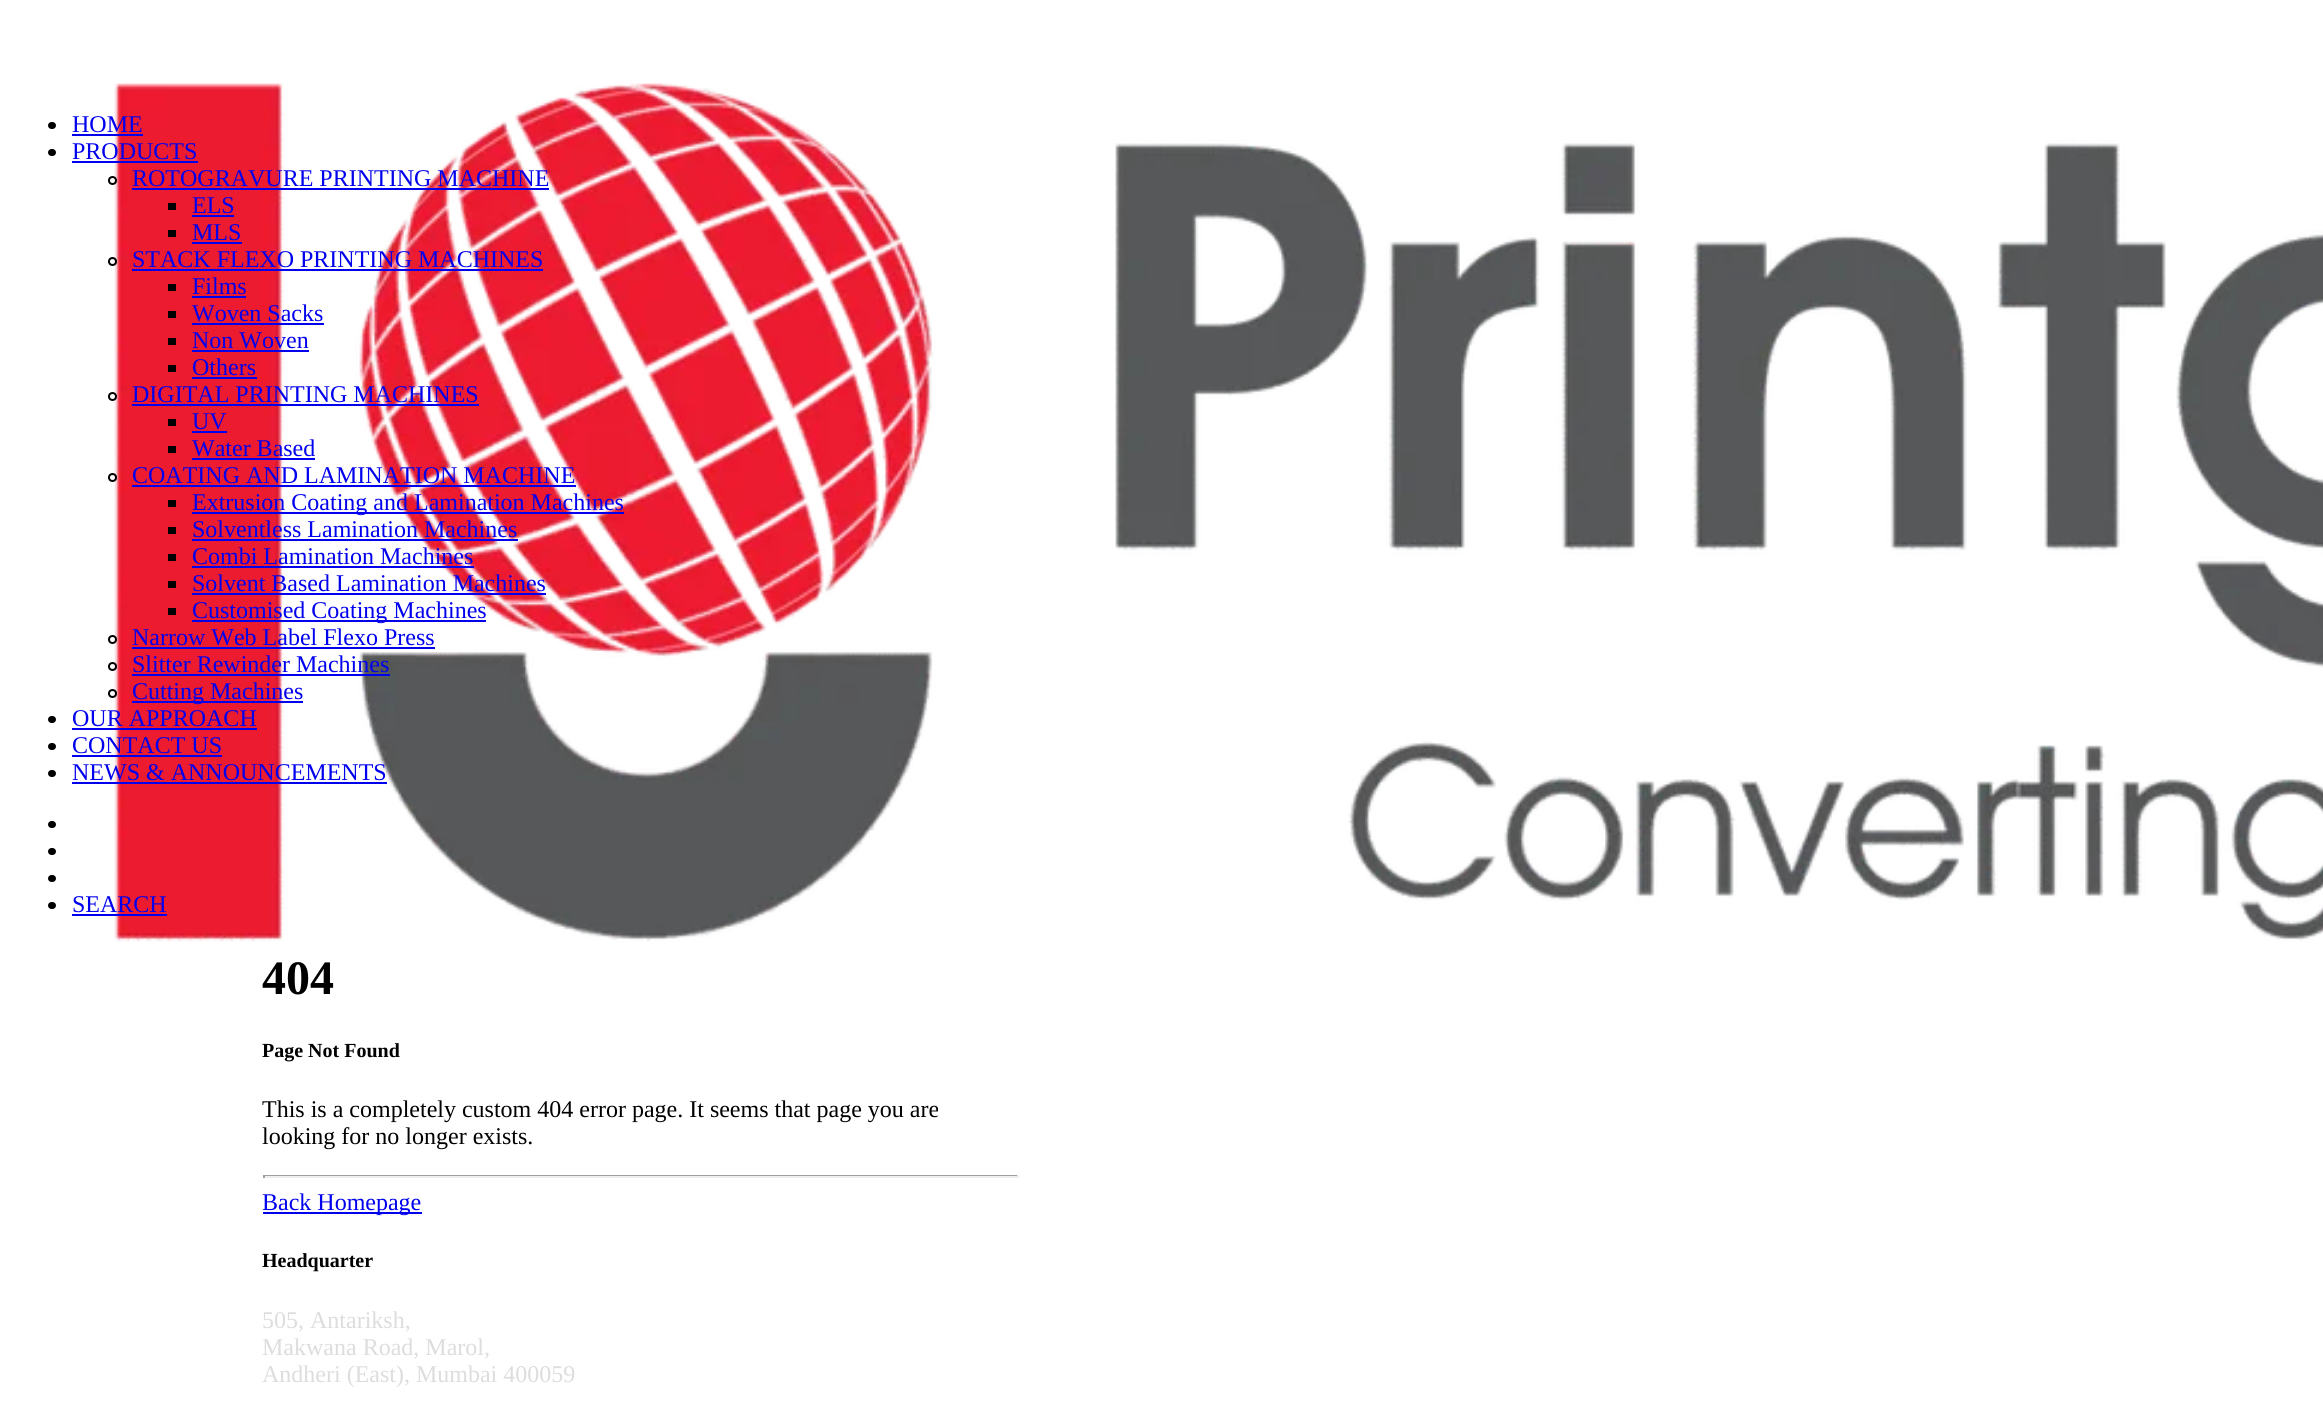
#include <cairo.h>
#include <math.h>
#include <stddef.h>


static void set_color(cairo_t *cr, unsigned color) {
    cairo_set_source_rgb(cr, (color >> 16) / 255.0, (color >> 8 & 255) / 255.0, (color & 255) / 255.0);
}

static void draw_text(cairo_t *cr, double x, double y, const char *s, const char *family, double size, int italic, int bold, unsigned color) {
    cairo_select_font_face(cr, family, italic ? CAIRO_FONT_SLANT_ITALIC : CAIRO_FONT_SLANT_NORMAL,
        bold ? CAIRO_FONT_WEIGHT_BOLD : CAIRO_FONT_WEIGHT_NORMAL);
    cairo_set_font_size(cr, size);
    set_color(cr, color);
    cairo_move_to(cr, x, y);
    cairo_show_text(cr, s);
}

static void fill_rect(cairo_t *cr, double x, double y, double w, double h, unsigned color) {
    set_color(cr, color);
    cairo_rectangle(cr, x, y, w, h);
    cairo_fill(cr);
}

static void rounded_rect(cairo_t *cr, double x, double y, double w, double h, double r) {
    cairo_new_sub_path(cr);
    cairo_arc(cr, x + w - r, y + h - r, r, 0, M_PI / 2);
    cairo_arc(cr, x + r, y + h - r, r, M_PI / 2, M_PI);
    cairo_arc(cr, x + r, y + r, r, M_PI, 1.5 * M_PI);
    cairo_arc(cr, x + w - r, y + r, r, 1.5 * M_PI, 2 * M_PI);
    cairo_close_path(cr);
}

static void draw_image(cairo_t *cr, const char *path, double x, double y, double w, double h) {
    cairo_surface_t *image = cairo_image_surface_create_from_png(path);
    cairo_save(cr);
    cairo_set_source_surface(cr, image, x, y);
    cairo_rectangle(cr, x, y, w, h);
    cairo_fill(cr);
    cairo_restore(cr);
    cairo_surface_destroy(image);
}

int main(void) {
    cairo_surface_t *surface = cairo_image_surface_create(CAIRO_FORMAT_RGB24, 2323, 1421);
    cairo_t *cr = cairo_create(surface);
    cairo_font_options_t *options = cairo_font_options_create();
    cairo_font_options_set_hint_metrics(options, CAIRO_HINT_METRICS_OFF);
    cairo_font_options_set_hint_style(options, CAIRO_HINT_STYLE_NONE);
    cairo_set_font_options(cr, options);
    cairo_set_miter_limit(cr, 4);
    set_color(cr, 0xFFFFFF);
    cairo_paint(cr);
    draw_image(cr, "assets/img1.png", 114, 83, 2209, 859);
    set_color(cr, 0x000000);
    rounded_rect(cr, 48, 122, 8, 7, 3.5);
    cairo_fill(cr);
    draw_text(cr, 72, 132, "HOME", "Liberation Serif", 24, 0, 0, 0x0000EE);
    fill_rect(cr, 72, 134, 71, 2, 0x0000EE);
    set_color(cr, 0x000000);
    rounded_rect(cr, 48, 149, 8, 7, 3.5);
    cairo_fill(cr);
    draw_text(cr, 72, 159, "PRODUCTS", "Liberation Serif", 24, 0, 0, 0x0000EE);
    fill_rect(cr, 72, 161, 126, 2, 0x0000EE);
    cairo_new_path(cr);
    cairo_arc(cr, 112.5, 180.5, 3.5, 0, 2 * M_PI);
    set_color(cr, 0x000000);
    cairo_stroke(cr);
    draw_text(cr, 132, 186, "ROTOGRAVURE PRINTING MACHINE", "Liberation Serif", 24, 0, 0, 0x0000EE);
    fill_rect(cr, 132, 188, 417, 2, 0x0000EE);
    fill_rect(cr, 168, 203, 8, 7, 0x000000);
    draw_text(cr, 192, 213, "ELS", "Liberation Serif", 24, 0, 0, 0x0000EE);
    fill_rect(cr, 192, 215, 42, 2, 0x0000EE);
    fill_rect(cr, 168, 230, 8, 7, 0x000000);
    draw_text(cr, 192, 240, "MLS", "Liberation Serif", 24, 0, 0, 0x0000EE);
    fill_rect(cr, 192, 242, 50, 2, 0x0000EE);
    cairo_new_path(cr);
    cairo_arc(cr, 112.5, 261.5, 3.5, 0, 2 * M_PI);
    set_color(cr, 0x000000);
    cairo_stroke(cr);
    draw_text(cr, 132, 267, "STACK FLEXO PRINTING MACHINES", "Liberation Serif", 24, 0, 0, 0x0000EE);
    fill_rect(cr, 132, 269, 411, 2, 0x0000EE);
    fill_rect(cr, 168, 284, 8, 7, 0x000000);
    draw_text(cr, 192, 294, "Films", "Liberation Serif", 24, 0, 0, 0x0000EE);
    fill_rect(cr, 192, 296, 54, 2, 0x0000EE);
    fill_rect(cr, 168, 311, 8, 7, 0x000000);
    draw_text(cr, 192, 321, "Woven Sacks", "Liberation Serif", 24, 0, 0, 0x0000EE);
    fill_rect(cr, 192, 323, 132, 2, 0x0000EE);
    fill_rect(cr, 168, 338, 8, 7, 0x000000);
    draw_text(cr, 192, 348, "Non Woven", "Liberation Serif", 24, 0, 0, 0x0000EE);
    fill_rect(cr, 192, 350, 117, 2, 0x0000EE);
    fill_rect(cr, 168, 365, 8, 7, 0x000000);
    draw_text(cr, 192, 375, "Others", "Liberation Serif", 24, 0, 0, 0x0000EE);
    fill_rect(cr, 192, 377, 65, 2, 0x0000EE);
    cairo_new_path(cr);
    cairo_arc(cr, 112.5, 396.5, 3.5, 0, 2 * M_PI);
    set_color(cr, 0x000000);
    cairo_stroke(cr);
    draw_text(cr, 132, 402, "DIGITAL PRINTING MACHINES", "Liberation Serif", 24, 0, 0, 0x0000EE);
    fill_rect(cr, 132, 404, 347, 2, 0x0000EE);
    fill_rect(cr, 168, 419, 8, 7, 0x000000);
    draw_text(cr, 192, 429, "UV", "Liberation Serif", 24, 0, 0, 0x0000EE);
    fill_rect(cr, 192, 431, 35, 2, 0x0000EE);
    fill_rect(cr, 168, 446, 8, 7, 0x000000);
    draw_text(cr, 192, 456, "Water Based", "Liberation Serif", 24, 0, 0, 0x0000EE);
    fill_rect(cr, 192, 458, 123, 2, 0x0000EE);
    cairo_new_path(cr);
    cairo_arc(cr, 112.5, 477.5, 3.5, 0, 2 * M_PI);
    set_color(cr, 0x000000);
    cairo_stroke(cr);
    draw_text(cr, 132, 483, "COATING AND LAMINATION MACHINE", "Liberation Serif", 24, 0, 0, 0x0000EE);
    fill_rect(cr, 132, 485, 444, 2, 0x0000EE);
    fill_rect(cr, 168, 500, 8, 7, 0x000000);
    fill_rect(cr, 192, 512, 432, 2, 0x0000EE);
    draw_text(cr, 192, 510, "Extrusion Coating and Lamination Machines", "Liberation Serif", 24, 0, 0, 0x0000EE);
    fill_rect(cr, 168, 527, 8, 7, 0x000000);
    draw_text(cr, 192, 537, "Solventless Lamination Machines", "Liberation Serif", 24, 0, 0, 0x0000EE);
    fill_rect(cr, 192, 539, 326, 2, 0x0000EE);
    fill_rect(cr, 168, 554, 8, 7, 0x000000);
    draw_text(cr, 192, 564, "Combi Lamination Machines", "Liberation Serif", 24, 0, 0, 0x0000EE);
    fill_rect(cr, 192, 566, 282, 2, 0x0000EE);
    fill_rect(cr, 168, 581, 8, 7, 0x000000);
    draw_text(cr, 192, 591, "Solvent Based Lamination Machines", "Liberation Serif", 24, 0, 0, 0x0000EE);
    fill_rect(cr, 192, 593, 354, 2, 0x0000EE);
    fill_rect(cr, 168, 608, 8, 7, 0x000000);
    fill_rect(cr, 192, 620, 294, 2, 0x0000EE);
    draw_text(cr, 192, 618, "Customised Coating Machines", "Liberation Serif", 24, 0, 0, 0x0000EE);
    cairo_new_path(cr);
    cairo_arc(cr, 112.5, 639.5, 3.5, 0, 2 * M_PI);
    set_color(cr, 0x000000);
    cairo_stroke(cr);
    draw_text(cr, 132, 645, "Narrow Web Label Flexo Press", "Liberation Serif", 24, 0, 0, 0x0000EE);
    fill_rect(cr, 132, 647, 303, 2, 0x0000EE);
    cairo_new_path(cr);
    cairo_arc(cr, 112.5, 666.5, 3.5, 0, 2 * M_PI);
    set_color(cr, 0x000000);
    cairo_stroke(cr);
    draw_text(cr, 132, 672, "Slitter Rewinder Machines", "Liberation Serif", 24, 0, 0, 0x0000EE);
    fill_rect(cr, 132, 674, 258, 2, 0x0000EE);
    cairo_new_path(cr);
    cairo_arc(cr, 112.5, 693.5, 3.5, 0, 2 * M_PI);
    set_color(cr, 0x000000);
    cairo_stroke(cr);
    fill_rect(cr, 132, 701, 171, 2, 0x0000EE);
    draw_text(cr, 132, 699, "Cutting Machines", "Liberation Serif", 24, 0, 0, 0x0000EE);
    set_color(cr, 0x000000);
    rounded_rect(cr, 48, 716, 8, 7, 3.5);
    cairo_fill(cr);
    draw_text(cr, 72, 726, "OUR APPROACH", "Liberation Serif", 24, 0, 0, 0x0000EE);
    fill_rect(cr, 72, 728, 185, 2, 0x0000EE);
    set_color(cr, 0x000000);
    rounded_rect(cr, 48, 743, 8, 7, 3.5);
    cairo_fill(cr);
    draw_text(cr, 72, 753, "CONTACT US", "Liberation Serif", 24, 0, 0, 0x0000EE);
    fill_rect(cr, 72, 755, 150, 2, 0x0000EE);
    set_color(cr, 0x000000);
    rounded_rect(cr, 48, 770, 8, 7, 3.5);
    cairo_fill(cr);
    draw_text(cr, 72, 780, "NEWS & ANNOUNCEMENTS", "Liberation Serif", 24, 0, 0, 0x0000EE);
    fill_rect(cr, 72, 782, 315, 2, 0x0000EE);
    set_color(cr, 0x000000);
    rounded_rect(cr, 48, 821, 8, 7, 3.5);
    cairo_fill(cr);
    rounded_rect(cr, 48, 848, 8, 7, 3.5);
    cairo_fill(cr);
    rounded_rect(cr, 48, 875, 8, 7, 3.5);
    cairo_fill(cr);
    rounded_rect(cr, 48, 902, 8, 7, 3.5);
    cairo_fill(cr);
    draw_text(cr, 72, 912, "SEARCH", "Liberation Serif", 24, 0, 0, 0x0000EE);
    fill_rect(cr, 72, 914, 95, 2, 0x0000EE);
    draw_text(cr, 262, 994, "404", "Liberation Serif", 48, 0, 1, 0x000000);
    draw_text(cr, 262, 1057, "Page Not Found", "Liberation Serif", 20, 0, 1, 0x000000);
    draw_text(cr, 262, 1117, "This is a completely custom 404 error page. It seems that page you are", "Liberation Serif", 24, 0, 0, 0x000000);
    draw_text(cr, 262, 1144, "looking for no longer exists.", "Liberation Serif", 24, 0, 0, 0x000000);
    fill_rect(cr, 263, 1175, 756, 1, 0x9F9F9F);
    fill_rect(cr, 1017, 1175, 2, 3, 0xEEEEEE);
    fill_rect(cr, 263, 1176, 756, 2, 0xEEEEEE);
    fill_rect(cr, 263, 1175, 2, 3, 0x9F9F9F);
    fill_rect(cr, 263, 1212, 159, 2, 0x0000EE);
    draw_text(cr, 262, 1210, "Back Homepage", "Liberation Serif", 24, 0, 0, 0x0000EE);
    draw_text(cr, 262, 1267, "Headquarter", "Liberation Serif", 20, 0, 1, 0x000000);
    draw_text(cr, 262, 1328, "505, Antariksh,", "Liberation Serif", 24, 0, 0, 0xDDDDDD);
    draw_text(cr, 262, 1355, "Makwana Road, Marol,", "Liberation Serif", 24, 0, 0, 0xDDDDDD);
    draw_text(cr, 262, 1382, "Andheri (East), Mumbai 400059", "Liberation Serif", 24, 0, 0, 0xDDDDDD);
    cairo_surface_write_to_png(surface, "output.png");
    cairo_font_options_destroy(options);
    cairo_destroy(cr);
    cairo_surface_destroy(surface);
    return 0;
}
